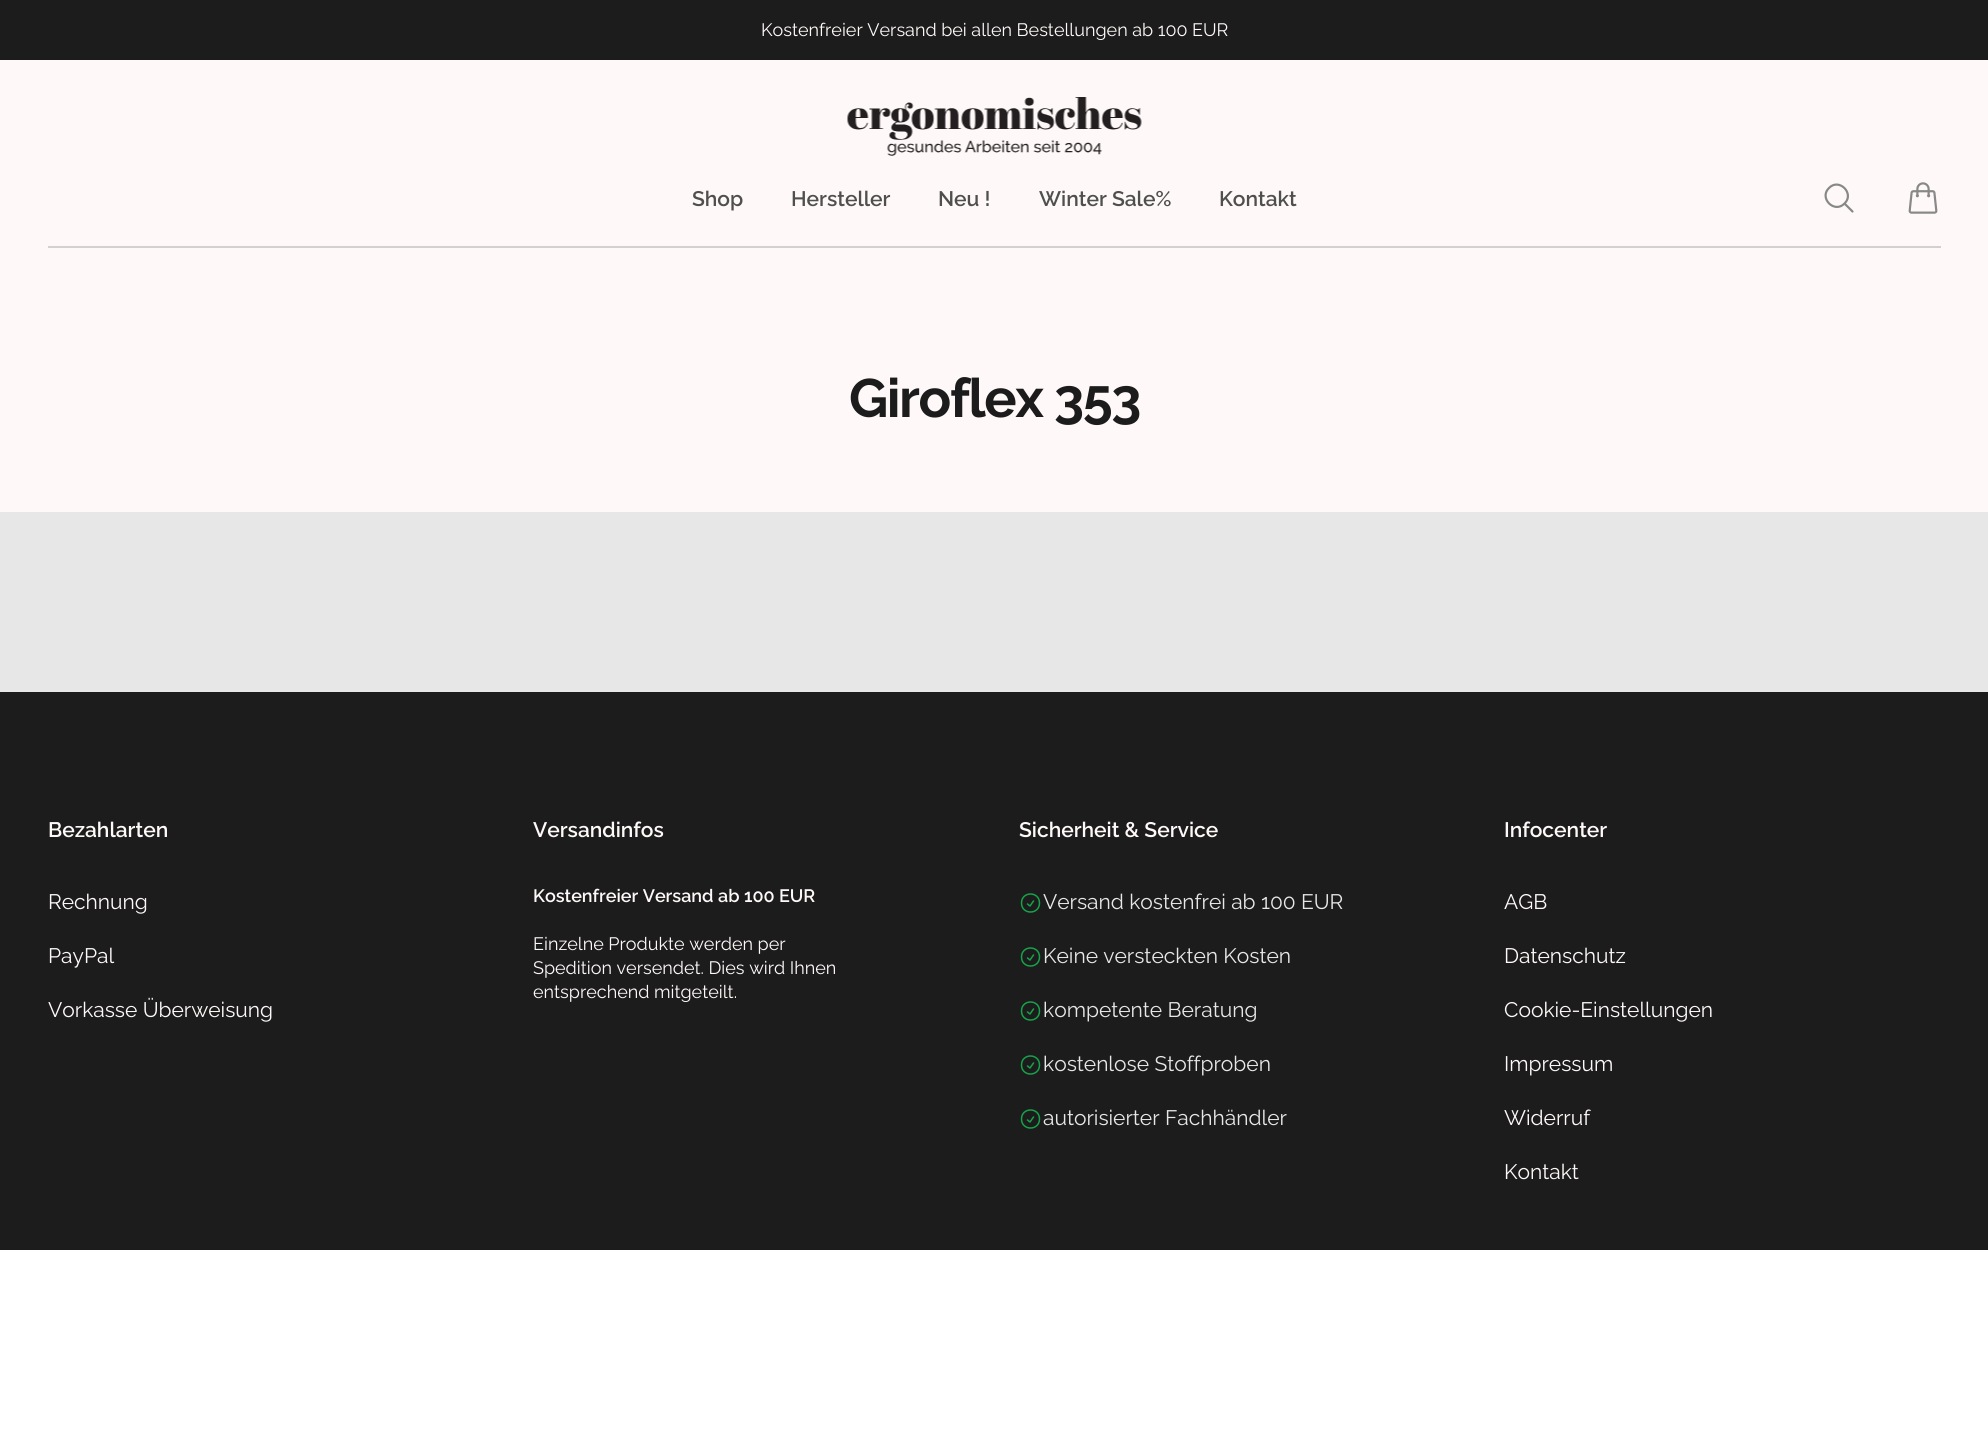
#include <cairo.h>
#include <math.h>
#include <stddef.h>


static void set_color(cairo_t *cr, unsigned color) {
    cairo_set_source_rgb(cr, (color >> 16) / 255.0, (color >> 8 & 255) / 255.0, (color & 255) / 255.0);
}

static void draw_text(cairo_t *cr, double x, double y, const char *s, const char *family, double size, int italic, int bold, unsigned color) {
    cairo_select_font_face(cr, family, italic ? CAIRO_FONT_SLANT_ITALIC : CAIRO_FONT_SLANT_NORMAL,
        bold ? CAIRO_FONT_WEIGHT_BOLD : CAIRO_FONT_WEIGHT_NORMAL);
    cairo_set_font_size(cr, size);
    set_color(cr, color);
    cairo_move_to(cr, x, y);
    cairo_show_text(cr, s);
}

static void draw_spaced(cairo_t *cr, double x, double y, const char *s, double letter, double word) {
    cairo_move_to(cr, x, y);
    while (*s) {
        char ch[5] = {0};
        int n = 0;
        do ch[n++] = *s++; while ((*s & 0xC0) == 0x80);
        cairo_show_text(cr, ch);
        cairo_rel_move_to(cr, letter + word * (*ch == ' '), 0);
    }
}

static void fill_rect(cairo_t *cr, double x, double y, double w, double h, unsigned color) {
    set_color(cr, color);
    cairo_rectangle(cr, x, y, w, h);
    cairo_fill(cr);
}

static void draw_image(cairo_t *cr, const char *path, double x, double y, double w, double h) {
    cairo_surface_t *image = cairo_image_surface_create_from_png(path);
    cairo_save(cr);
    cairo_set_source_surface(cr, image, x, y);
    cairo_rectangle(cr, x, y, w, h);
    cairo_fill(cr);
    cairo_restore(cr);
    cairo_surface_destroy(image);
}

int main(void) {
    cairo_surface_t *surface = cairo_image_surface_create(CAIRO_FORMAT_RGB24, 1988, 1453);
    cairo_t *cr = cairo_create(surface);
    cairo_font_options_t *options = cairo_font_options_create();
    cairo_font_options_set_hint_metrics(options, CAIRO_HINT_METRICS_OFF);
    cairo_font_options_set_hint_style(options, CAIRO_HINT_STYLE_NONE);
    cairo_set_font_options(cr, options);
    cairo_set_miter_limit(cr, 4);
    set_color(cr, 0xFFFFFF);
    cairo_paint(cr);
    fill_rect(cr, 0, 60, 1988, 452, 0xFEF9F8);
    fill_rect(cr, 0, 0, 1988, 60, 0x1C1C1C);
    draw_text(cr, 761, 36, "Kostenfreier Versand bei allen Bestellungen ab 100 EUR", "Raleway", 18, 0, 0, 0xFEF9F8);
    fill_rect(cr, 48, 246, 1893, 2, 0xD1D1D1);
    draw_image(cr, "assets/img1.png", 847, 97, 295, 59);
    draw_text(cr, 692, 206, "Shop", "Raleway SemiBold", 21, 0, 0, 0x4F4F4F);
    draw_text(cr, 791, 206, "Hersteller", "Raleway SemiBold", 21, 0, 0, 0x4F4F4F);
    draw_text(cr, 938, 206, "Neu !", "Raleway SemiBold", 21, 0, 0, 0x4F4F4F);
    draw_text(cr, 1039, 206, "Winter Sale%", "Raleway SemiBold", 21, 0, 0, 0x4F4F4F);
    draw_text(cr, 1219, 206, "Kontakt", "Raleway SemiBold", 21, 0, 0, 0x4F4F4F);
    cairo_new_path(cr);
    cairo_move_to(cr, 1852.5, 211.5);
    cairo_line_to(cr, 1844.5, 203.5);
    cairo_move_to(cr, 1844.5, 203.5);
    cairo_curve_to(cr, 1855, 193.5, 1839, 177.5, 1829, 188);
    cairo_curve_to(cr, 1818.5, 198, 1834.5, 214, 1844.5, 203.5);
    cairo_close_path(cr);
    set_color(cr, 0x888888);
    cairo_set_line_width(cr, 2.2);
    cairo_set_line_cap(cr, CAIRO_LINE_CAP_ROUND);
    cairo_set_line_join(cr, CAIRO_LINE_JOIN_ROUND);
    cairo_stroke(cr);
    draw_image(cr, "assets/img2.png", 1908, 182, 30, 32);
    cairo_select_font_face(cr, "Raleway", CAIRO_FONT_SLANT_NORMAL, CAIRO_FONT_WEIGHT_BOLD);
    cairo_set_font_size(cr, 54);
    set_color(cr, 0x1C1C1C);
    draw_spaced(cr, 849, 417, "Giroflex 353", -1.4, 0);
    fill_rect(cr, 0, 512, 1988, 180, 0xE7E7E7);
    fill_rect(cr, 0, 692, 1988, 558, 0x1C1C1C);
    draw_text(cr, 48, 837, "Bezahlarten", "Raleway SemiBold", 21, 0, 0, 0xFEF9F8);
    draw_text(cr, 48, 909, "Rechnung", "Raleway", 21, 0, 0, 0xFEF9F8);
    draw_text(cr, 48, 963, "PayPal", "Raleway", 21, 0, 0, 0xFEF9F8);
    draw_text(cr, 48, 1017, "Vorkasse Überweisung", "Raleway", 21, 0, 0, 0xFEF9F8);
    draw_text(cr, 533, 837, "Versandinfos", "Raleway SemiBold", 21, 0, 0, 0xFEF9F8);
    draw_text(cr, 533, 902, "Kostenfreier Versand ab 100 EUR", "Raleway SemiBold", 18, 0, 0, 0xFEF9F8);
    draw_text(cr, 533, 950, "Einzelne Produkte werden per", "Raleway", 18, 0, 0, 0xFEF9F8);
    draw_text(cr, 533, 974, "Spedition versendet. Dies wird Ihnen", "Raleway", 18, 0, 0, 0xFEF9F8);
    draw_text(cr, 533, 998, "entsprechend mitgeteilt.", "Raleway", 18, 0, 0, 0xFEF9F8);
    draw_text(cr, 1019, 837, "Sicherheit & Service", "Raleway SemiBold", 21, 0, 0, 0xFEF9F8);
    cairo_new_path(cr);
    cairo_move_to(cr, 1027.5, 904);
    cairo_line_to(cr, 1030, 906);
    cairo_line_to(cr, 1033.5, 901);
    cairo_move_to(cr, 1039.5, 903);
    cairo_curve_to(cr, 1039.5, 915, 1021.5, 915, 1021.5, 903);
    cairo_curve_to(cr, 1021.5, 891, 1039.5, 891, 1039.5, 903);
    cairo_close_path(cr);
    set_color(cr, 0x16A34A);
    cairo_set_line_width(cr, 1.5);
    cairo_stroke(cr);
    draw_text(cr, 1043, 909, "Versand kostenfrei ab 100 EUR", "Raleway", 21, 0, 0, 0xE7E7E7);
    cairo_new_path(cr);
    cairo_move_to(cr, 1027.5, 958);
    cairo_line_to(cr, 1030, 960);
    cairo_line_to(cr, 1033.5, 955);
    cairo_move_to(cr, 1039.5, 957);
    cairo_curve_to(cr, 1039.5, 969, 1021.5, 969, 1021.5, 957);
    cairo_curve_to(cr, 1021.5, 945, 1039.5, 945, 1039.5, 957);
    cairo_close_path(cr);
    set_color(cr, 0x16A34A);
    cairo_stroke(cr);
    draw_text(cr, 1043, 963, "Keine versteckten Kosten", "Raleway", 21, 0, 0, 0xE7E7E7);
    cairo_new_path(cr);
    cairo_move_to(cr, 1027.5, 1012);
    cairo_line_to(cr, 1030, 1014);
    cairo_line_to(cr, 1033.5, 1009);
    cairo_move_to(cr, 1039.5, 1011);
    cairo_curve_to(cr, 1039.5, 1023, 1021.5, 1023, 1021.5, 1011);
    cairo_curve_to(cr, 1021.5, 999, 1039.5, 999, 1039.5, 1011);
    cairo_close_path(cr);
    set_color(cr, 0x16A34A);
    cairo_stroke(cr);
    draw_text(cr, 1043, 1017, "kompetente Beratung", "Raleway", 21, 0, 0, 0xE7E7E7);
    cairo_new_path(cr);
    cairo_move_to(cr, 1027.5, 1066);
    cairo_line_to(cr, 1030, 1068);
    cairo_line_to(cr, 1033.5, 1063);
    cairo_move_to(cr, 1039.5, 1065);
    cairo_curve_to(cr, 1039.5, 1077, 1021.5, 1077, 1021.5, 1065);
    cairo_curve_to(cr, 1021.5, 1053, 1039.5, 1053, 1039.5, 1065);
    cairo_close_path(cr);
    set_color(cr, 0x16A34A);
    cairo_stroke(cr);
    draw_text(cr, 1043, 1071, "kostenlose Stoffproben", "Raleway", 21, 0, 0, 0xE7E7E7);
    cairo_new_path(cr);
    cairo_move_to(cr, 1027.5, 1120);
    cairo_line_to(cr, 1030, 1122);
    cairo_line_to(cr, 1033.5, 1117);
    cairo_move_to(cr, 1039.5, 1119);
    cairo_curve_to(cr, 1039.5, 1131, 1021.5, 1131, 1021.5, 1119);
    cairo_curve_to(cr, 1021.5, 1107, 1039.5, 1107, 1039.5, 1119);
    cairo_close_path(cr);
    set_color(cr, 0x16A34A);
    cairo_stroke(cr);
    draw_text(cr, 1043, 1125, "autorisierter Fachhändler", "Raleway", 21, 0, 0, 0xE7E7E7);
    draw_text(cr, 1504, 837, "Infocenter", "Raleway SemiBold", 21, 0, 0, 0xFEF9F8);
    draw_text(cr, 1504, 909, "AGB", "Raleway", 21, 0, 0, 0xFEF9F8);
    draw_text(cr, 1504, 963, "Datenschutz", "Raleway", 21, 0, 0, 0xFEF9F8);
    draw_text(cr, 1504, 1017, "Cookie-Einstellungen", "Raleway", 21, 0, 0, 0xFEF9F8);
    draw_text(cr, 1504, 1071, "Impressum", "Raleway", 21, 0, 0, 0xFEF9F8);
    draw_text(cr, 1504, 1125, "Widerruf", "Raleway", 21, 0, 0, 0xFEF9F8);
    draw_text(cr, 1504, 1179, "Kontakt", "Raleway", 21, 0, 0, 0xFEF9F8);
    cairo_surface_write_to_png(surface, "output.png");
    cairo_font_options_destroy(options);
    cairo_destroy(cr);
    cairo_surface_destroy(surface);
    return 0;
}
